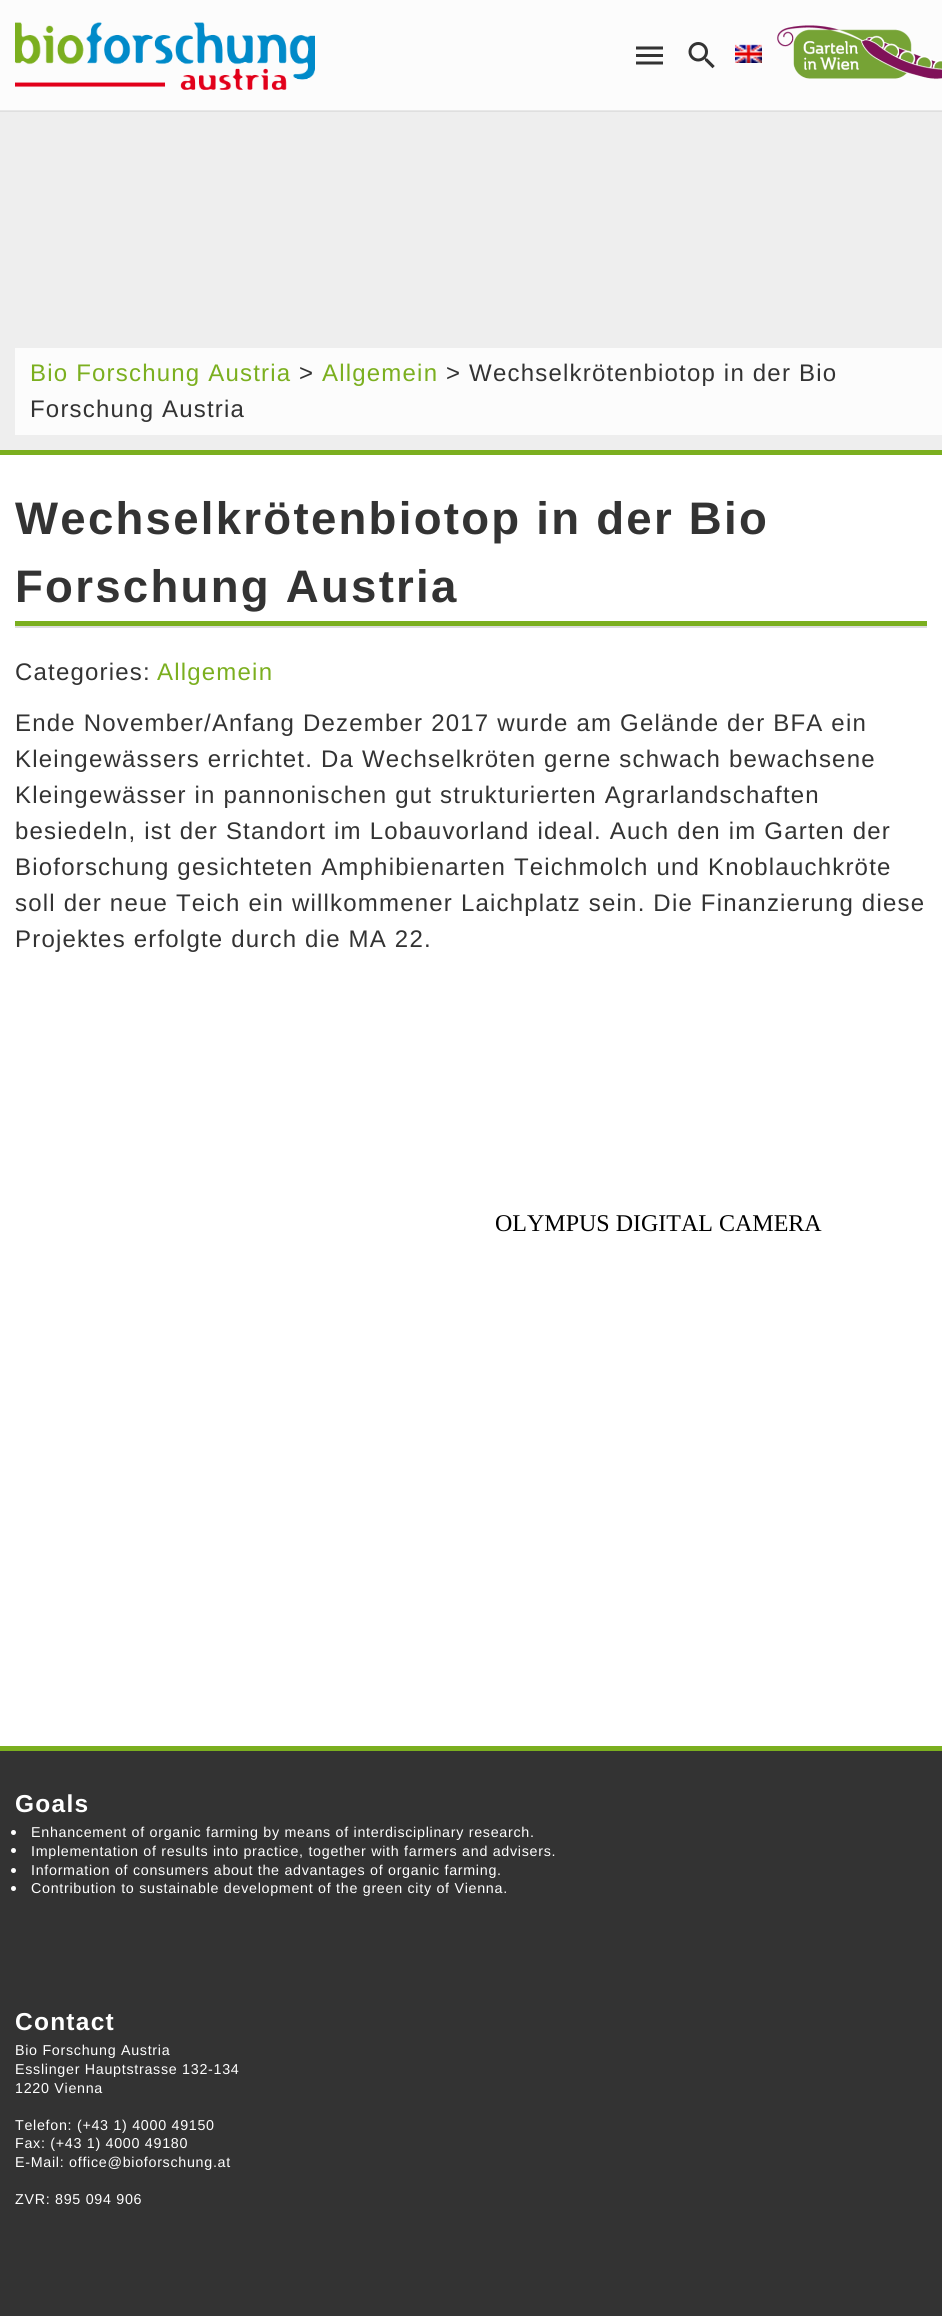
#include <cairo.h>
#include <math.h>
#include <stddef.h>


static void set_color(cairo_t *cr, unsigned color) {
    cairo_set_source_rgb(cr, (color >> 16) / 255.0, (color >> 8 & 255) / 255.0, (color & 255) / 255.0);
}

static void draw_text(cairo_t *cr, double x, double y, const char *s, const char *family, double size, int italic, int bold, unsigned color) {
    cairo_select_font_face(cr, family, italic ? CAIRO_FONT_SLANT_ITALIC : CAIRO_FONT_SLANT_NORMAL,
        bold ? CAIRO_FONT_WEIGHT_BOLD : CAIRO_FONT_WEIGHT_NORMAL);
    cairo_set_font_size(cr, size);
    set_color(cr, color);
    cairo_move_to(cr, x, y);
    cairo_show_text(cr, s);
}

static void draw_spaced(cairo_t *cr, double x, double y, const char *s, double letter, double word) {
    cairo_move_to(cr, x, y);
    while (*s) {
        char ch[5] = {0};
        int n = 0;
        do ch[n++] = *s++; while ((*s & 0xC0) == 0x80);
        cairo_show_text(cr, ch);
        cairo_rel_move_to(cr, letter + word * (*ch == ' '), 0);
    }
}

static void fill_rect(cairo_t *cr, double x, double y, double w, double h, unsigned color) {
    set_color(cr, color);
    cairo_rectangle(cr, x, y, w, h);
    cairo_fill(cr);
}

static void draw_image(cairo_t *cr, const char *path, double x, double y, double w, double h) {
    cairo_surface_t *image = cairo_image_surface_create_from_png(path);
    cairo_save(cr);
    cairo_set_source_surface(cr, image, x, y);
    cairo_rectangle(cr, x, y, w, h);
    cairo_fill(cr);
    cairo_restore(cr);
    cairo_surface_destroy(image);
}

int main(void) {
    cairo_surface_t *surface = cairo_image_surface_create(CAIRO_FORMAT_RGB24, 942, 2316);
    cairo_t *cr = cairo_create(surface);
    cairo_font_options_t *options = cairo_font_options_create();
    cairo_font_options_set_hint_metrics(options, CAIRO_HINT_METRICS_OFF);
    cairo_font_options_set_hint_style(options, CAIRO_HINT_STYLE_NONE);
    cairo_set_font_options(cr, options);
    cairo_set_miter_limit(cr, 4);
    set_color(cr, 0xEEEEEE);
    cairo_paint(cr);
    fill_rect(cr, 0, 111, 942, 1, 0xDFDFDF);
    fill_rect(cr, 0, 0, 942, 110, 0xFCFCFC);
    fill_rect(cr, 0, 110, 942, 1, 0xE8E8E8);
    draw_image(cr, "assets/img1.png", 15, 22, 300, 68);
    draw_image(cr, "assets/img2.png", 636, 46, 27, 19);
    draw_image(cr, "assets/img3.png", 688, 42, 27, 27);
    draw_image(cr, "assets/img4.png", 735, 44, 27, 19);
    draw_image(cr, "assets/img5.png", 777, 25, 165, 55);
    fill_rect(cr, 0, 450, 942, 5, 0x7BAF1F);
    fill_rect(cr, 15, 348, 927, 87, 0xFCFCFC);
    cairo_select_font_face(cr, "Liberation Sans", CAIRO_FONT_SLANT_NORMAL, CAIRO_FONT_WEIGHT_NORMAL);
    cairo_set_font_size(cr, 24);
    set_color(cr, 0x7BAF1F);
    draw_spaced(cr, 30, 381, "Bio Forschung Austria", 1.2, 0);
    set_color(cr, 0x333333);
    draw_spaced(cr, 299, 381, ">", 1.2, 0);
    set_color(cr, 0x7BAF1F);
    draw_spaced(cr, 322, 381, "Allgemein", 1.2, 0);
    set_color(cr, 0x333333);
    draw_spaced(cr, 446, 381, "> Wechselkrötenbiotop in der Bio", 1.2, 0);
    draw_spaced(cr, 30, 417, "Forschung Austria", 1.2, 0);
    fill_rect(cr, 0, 455, 942, 1291, 0xFFFFFF);
    fill_rect(cr, 15, 626, 912, 2, 0xDDDDDD);
    fill_rect(cr, 15, 621, 912, 5, 0x7BAF1F);
    cairo_select_font_face(cr, "Liberation Sans", CAIRO_FONT_SLANT_NORMAL, CAIRO_FONT_WEIGHT_BOLD);
    cairo_set_font_size(cr, 45.6);
    set_color(cr, 0x333333);
    draw_spaced(cr, 15, 534, "Wechselkrötenbiotop in der Bio", 2.25, 0);
    draw_spaced(cr, 15, 602, "Forschung Austria", 2.25, 0);
    cairo_select_font_face(cr, "Liberation Sans", CAIRO_FONT_SLANT_NORMAL, CAIRO_FONT_WEIGHT_NORMAL);
    cairo_set_font_size(cr, 24);
    draw_spaced(cr, 15, 680, "Categories:", 1.2, 0);
    set_color(cr, 0x7BAF1F);
    draw_spaced(cr, 157, 680, "Allgemein", 1.2, 0);
    set_color(cr, 0x333333);
    draw_spaced(cr, 15, 731, "Ende November/Anfang Dezember 2017 wurde am Gelände der BFA ein", 1.2, 0);
    draw_spaced(cr, 15, 767, "Kleingewässers errichtet. Da Wechselkröten gerne schwach bewachsene", 1.2, 0);
    draw_spaced(cr, 15, 803, "Kleingewässer in pannonischen gut strukturierten Agrarlandschaften", 1.2, 0);
    draw_spaced(cr, 15, 839, "besiedeln, ist der Standort im Lobauvorland ideal. Auch den im Garten der", 1.2, 0);
    draw_spaced(cr, 15, 875, "Bioforschung gesichteten Amphibienarten Teichmolch und Knoblauchkröte", 1.2, 0);
    draw_spaced(cr, 15, 911, "soll der neue Teich ein willkommener Laichplatz sein. Die Finanzierung diese", 1.2, 0);
    draw_spaced(cr, 15, 947, "Projektes erfolgte durch die MA 22.", 1.2, 0);
    draw_text(cr, 495, 1231, "OLYMPUS DIGITAL CAMERA", "Liberation Serif", 24, 0, 0, 0x000000);
    fill_rect(cr, 0, 1751, 942, 565, 0x333333);
    fill_rect(cr, 0, 1746, 942, 5, 0x7BAF1F);
    cairo_select_font_face(cr, "Liberation Sans", CAIRO_FONT_SLANT_NORMAL, CAIRO_FONT_WEIGHT_BOLD);
    cairo_set_font_size(cr, 24.5);
    set_color(cr, 0xFFFFFF);
    draw_spaced(cr, 15, 1812, "Goals", 1.25, 0);
    cairo_new_path(cr);
    cairo_arc(cr, 13.5, 1832.5, 2.5, 0, 2 * M_PI);
    cairo_fill(cr);
    cairo_select_font_face(cr, "Liberation Sans", CAIRO_FONT_SLANT_NORMAL, CAIRO_FONT_WEIGHT_NORMAL);
    cairo_set_font_size(cr, 14.3);
    draw_spaced(cr, 31, 1837, "Enhancement of organic farming by means of interdisciplinary research.", 0.7, 0);
    cairo_new_path(cr);
    cairo_arc(cr, 13.5, 1850.5, 2.5, 0, 2 * M_PI);
    cairo_fill(cr);
    draw_spaced(cr, 31, 1856, "Implementation of results into practice, together with farmers and advisers.", 0.7, 0);
    cairo_new_path(cr);
    cairo_arc(cr, 13.5, 1870.5, 2.5, 0, 2 * M_PI);
    cairo_fill(cr);
    draw_spaced(cr, 31, 1875, "Information of consumers about the advantages of organic farming.", 0.7, 0);
    cairo_new_path(cr);
    cairo_arc(cr, 13.5, 1888.5, 2.5, 0, 2 * M_PI);
    cairo_fill(cr);
    draw_spaced(cr, 31, 1893, "Contribution to sustainable development of the green city of Vienna.", 0.7, 0);
    cairo_select_font_face(cr, "Liberation Sans", CAIRO_FONT_SLANT_NORMAL, CAIRO_FONT_WEIGHT_BOLD);
    cairo_set_font_size(cr, 24.5);
    draw_spaced(cr, 15, 2030, "Contact", 1.25, 0);
    cairo_select_font_face(cr, "Liberation Sans", CAIRO_FONT_SLANT_NORMAL, CAIRO_FONT_WEIGHT_NORMAL);
    cairo_set_font_size(cr, 14.3);
    draw_spaced(cr, 15, 2055, "Bio Forschung Austria", 0.7, 0);
    draw_spaced(cr, 15, 2074, "Esslinger Hauptstrasse 132-134", 0.7, 0);
    draw_spaced(cr, 15, 2093, "1220 Vienna", 0.7, 0);
    draw_spaced(cr, 15, 2130, "Telefon: (+43 1) 4000 49150", 0.7, 0);
    draw_spaced(cr, 15, 2148, "Fax: (+43 1) 4000 49180", 0.7, 0);
    draw_spaced(cr, 15, 2167, "E-Mail: office@bioforschung.at", 0.7, 0);
    draw_spaced(cr, 15, 2204, "ZVR: 895 094 906", 0.7, 0);
    cairo_surface_write_to_png(surface, "output.png");
    cairo_font_options_destroy(options);
    cairo_destroy(cr);
    cairo_surface_destroy(surface);
    return 0;
}
